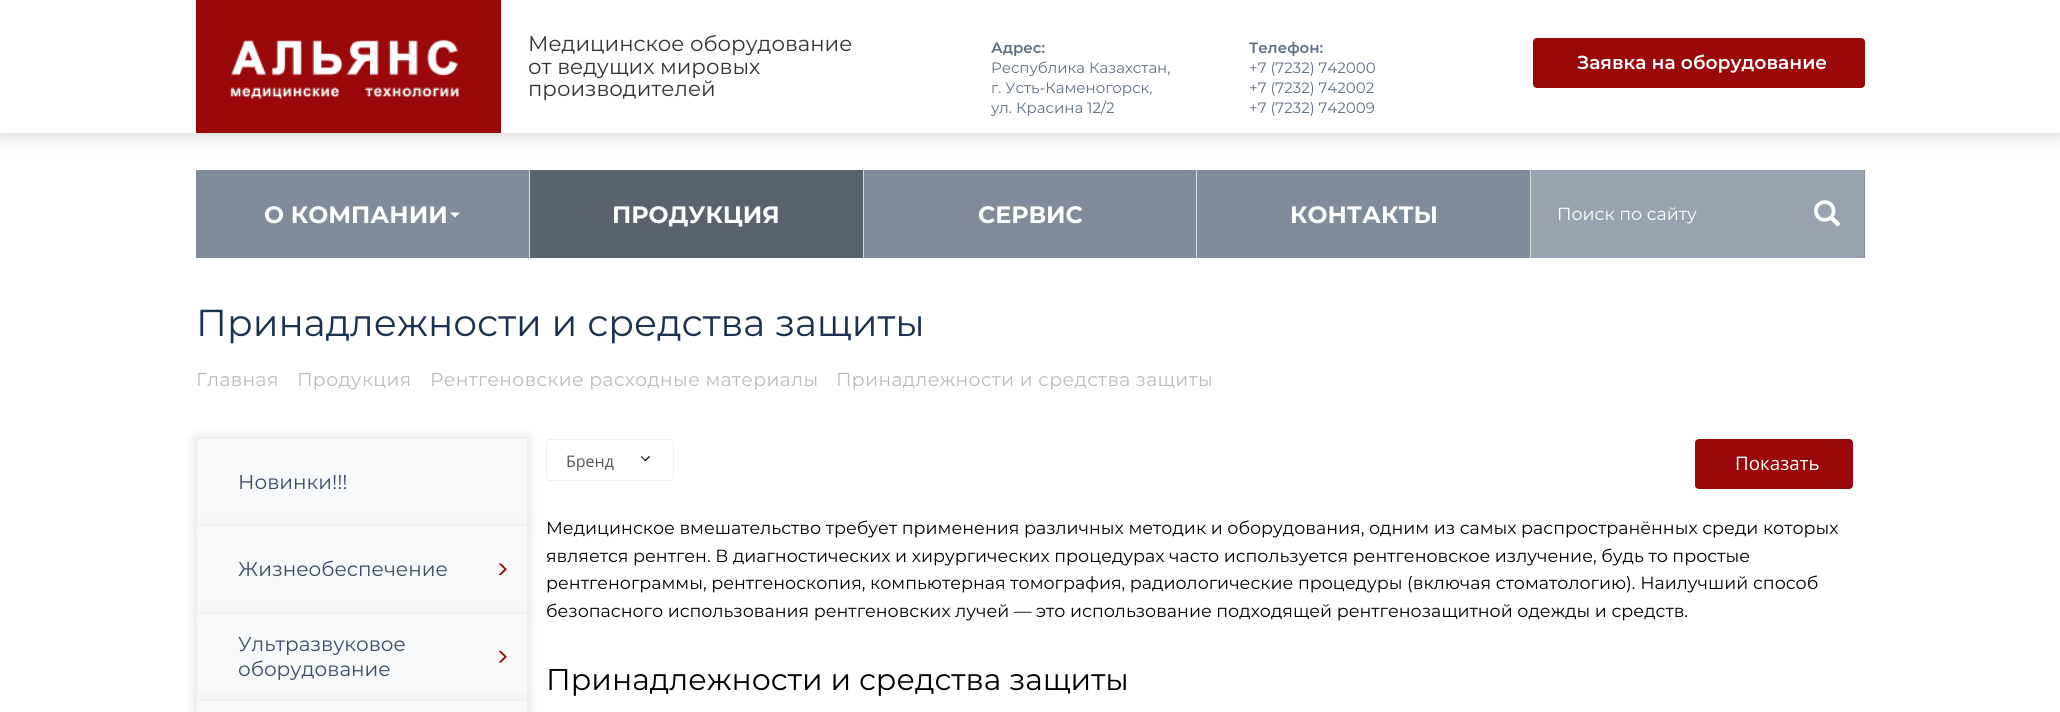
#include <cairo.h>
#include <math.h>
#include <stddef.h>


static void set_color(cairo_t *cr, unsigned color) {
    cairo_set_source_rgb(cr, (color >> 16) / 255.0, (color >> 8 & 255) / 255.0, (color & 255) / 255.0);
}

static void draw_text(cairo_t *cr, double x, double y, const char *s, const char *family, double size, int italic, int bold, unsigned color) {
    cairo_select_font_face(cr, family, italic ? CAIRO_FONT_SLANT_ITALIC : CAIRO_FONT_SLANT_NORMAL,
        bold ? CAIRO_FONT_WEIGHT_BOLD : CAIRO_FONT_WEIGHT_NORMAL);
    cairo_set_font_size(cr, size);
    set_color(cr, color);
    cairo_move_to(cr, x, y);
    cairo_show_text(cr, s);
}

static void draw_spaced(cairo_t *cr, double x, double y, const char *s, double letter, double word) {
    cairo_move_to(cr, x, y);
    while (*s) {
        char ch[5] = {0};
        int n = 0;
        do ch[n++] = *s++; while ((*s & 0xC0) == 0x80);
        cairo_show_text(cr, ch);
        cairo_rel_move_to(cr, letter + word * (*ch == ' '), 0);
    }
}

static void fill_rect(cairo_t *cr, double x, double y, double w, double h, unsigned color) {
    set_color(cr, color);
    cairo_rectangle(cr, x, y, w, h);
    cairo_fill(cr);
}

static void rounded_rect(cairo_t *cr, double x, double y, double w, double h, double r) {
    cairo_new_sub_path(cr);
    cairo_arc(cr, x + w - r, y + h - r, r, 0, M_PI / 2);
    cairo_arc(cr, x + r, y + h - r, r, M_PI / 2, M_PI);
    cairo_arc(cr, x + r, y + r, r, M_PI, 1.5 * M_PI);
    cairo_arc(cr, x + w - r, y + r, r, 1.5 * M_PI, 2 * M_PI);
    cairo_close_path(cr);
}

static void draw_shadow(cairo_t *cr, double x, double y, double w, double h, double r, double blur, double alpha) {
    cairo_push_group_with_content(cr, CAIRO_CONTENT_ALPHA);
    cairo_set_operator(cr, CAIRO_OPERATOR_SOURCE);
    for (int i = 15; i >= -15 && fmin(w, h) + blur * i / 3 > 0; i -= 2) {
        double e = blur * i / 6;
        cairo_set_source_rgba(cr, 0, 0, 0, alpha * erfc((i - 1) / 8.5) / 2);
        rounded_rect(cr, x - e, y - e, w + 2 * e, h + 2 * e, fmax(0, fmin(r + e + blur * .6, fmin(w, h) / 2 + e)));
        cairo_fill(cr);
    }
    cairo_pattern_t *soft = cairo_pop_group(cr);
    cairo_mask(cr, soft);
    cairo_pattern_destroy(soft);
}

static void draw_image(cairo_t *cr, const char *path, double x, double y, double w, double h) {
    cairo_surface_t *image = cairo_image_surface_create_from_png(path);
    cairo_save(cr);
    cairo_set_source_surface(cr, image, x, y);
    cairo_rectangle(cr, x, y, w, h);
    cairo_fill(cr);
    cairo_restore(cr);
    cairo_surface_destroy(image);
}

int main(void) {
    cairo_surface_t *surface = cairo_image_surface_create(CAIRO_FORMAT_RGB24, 2060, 712);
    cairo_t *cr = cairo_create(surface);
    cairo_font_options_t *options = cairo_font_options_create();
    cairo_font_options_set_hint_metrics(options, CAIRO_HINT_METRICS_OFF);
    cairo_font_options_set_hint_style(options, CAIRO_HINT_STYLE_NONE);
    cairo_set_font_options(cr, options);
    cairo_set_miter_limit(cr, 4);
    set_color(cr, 0xFFFFFF);
    cairo_paint(cr);
    cairo_save(cr);
    cairo_set_fill_rule(cr, CAIRO_FILL_RULE_EVEN_ODD);
    cairo_new_path(cr);
    cairo_move_to(cr, 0, 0);
    cairo_line_to(cr, 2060, 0);
    cairo_line_to(cr, 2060, 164);
    cairo_line_to(cr, 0, 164);
    cairo_close_path(cr);
    cairo_move_to(cr, 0, 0);
    cairo_line_to(cr, 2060, 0);
    cairo_line_to(cr, 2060, 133);
    cairo_line_to(cr, 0, 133);
    cairo_close_path(cr);
    cairo_clip(cr);
    set_color(cr, 0x000000);
    draw_shadow(cr, 0, 1, 2060, 133, 0, 9.5, 0.2);
    cairo_restore(cr);
    fill_rect(cr, 196, 0, 305, 133, 0x9A080A);
    draw_image(cr, "assets/img1.png", 230, 39, 229, 60);
    draw_text(cr, 528, 51, "Медицинское оборудование", "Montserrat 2", 21.25, 0, 0, 0x333333);
    draw_text(cr, 528, 74, "от ведущих мировых", "Montserrat 2", 21.25, 0, 0, 0x333333);
    draw_text(cr, 528, 96, "производителей", "Montserrat 2", 21.25, 0, 0, 0x333333);
    draw_text(cr, 991, 53, "Адрес:", "Montserrat SemiBold", 15, 0, 0, 0x5E6F83);
    draw_text(cr, 991, 73, "Республика Казахстан,", "Montserrat", 15, 0, 0, 0x5E6F83);
    draw_text(cr, 991, 93, "г. Усть-Каменогорск,", "Montserrat", 15, 0, 0, 0x5E6F83);
    draw_text(cr, 991, 113, "ул. Красина 12/2", "Montserrat", 15, 0, 0, 0x5E6F83);
    draw_text(cr, 1249, 53, "Телефон:", "Montserrat SemiBold", 15, 0, 0, 0x5E6F83);
    draw_text(cr, 1249, 73, "+7 (7232) 742000", "Montserrat", 15, 0, 0, 0x5E6F83);
    draw_text(cr, 1249, 93, "+7 (7232) 742002", "Montserrat", 15, 0, 0, 0x5E6F83);
    draw_text(cr, 1249, 113, "+7 (7232) 742009", "Montserrat", 15, 0, 0, 0x5E6F83);
    set_color(cr, 0x9A080A);
    rounded_rect(cr, 1533, 38, 332, 50, 4);
    cairo_fill(cr);
    draw_text(cr, 1577, 69, "Заявка на оборудование", "Montserrat SemiBold", 18.75, 0, 0, 0xFFFFFF);
    fill_rect(cr, 196, 170, 1669, 88, 0x808C9C);
    draw_text(cr, 264, 223, "О КОМПАНИИ", "Montserrat", 23.75, 0, 1, 0xFFFFFF);
    cairo_new_path(cr);
    cairo_move_to(cr, 450, 212.5);
    cairo_line_to(cr, 460, 212.5);
    cairo_line_to(cr, 455, 217.5);
    cairo_close_path(cr);
    cairo_fill(cr);
    fill_rect(cr, 529, 170, 1, 88, 0xD9DDE1);
    fill_rect(cr, 530, 170, 333, 88, 0x5A626D);
    draw_text(cr, 612, 223, "ПРОДУКЦИЯ", "Montserrat", 23.75, 0, 1, 0xFFFFFF);
    fill_rect(cr, 863, 170, 1, 88, 0xD9DDE1);
    draw_text(cr, 978, 223, "СЕРВИС", "Montserrat", 23.75, 0, 1, 0xFFFFFF);
    fill_rect(cr, 1196, 170, 1, 88, 0xD9DDE1);
    draw_text(cr, 1290, 223, "КОНТАКТЫ", "Montserrat", 23.75, 0, 1, 0xFFFFFF);
    fill_rect(cr, 1530, 170, 1, 88, 0xD9DDE1);
    set_color(cr, 0x99A3B0);
    rounded_rect(cr, 1531, 170, 333, 88, 2.5);
    cairo_fill(cr);
    draw_text(cr, 1557, 220, "Поиск по сайту", "Montserrat", 17.5, 0, 0, 0xFFFFFF);
    draw_image(cr, "assets/img2.png", 1814, 200, 27, 27);
    draw_text(cr, 196, 336, "Принадлежности и средства защиты", "Montserrat", 37.5, 0, 0, 0x1A3150);
    cairo_set_font_size(cr, 18.75);
    set_color(cr, 0xBBBBBB);
    draw_spaced(cr, 196, 386, "Главная", 0.4, 0);
    draw_spaced(cr, 297, 386, "Продукция", 0.4, 0);
    draw_spaced(cr, 430, 386, "Рентгеновские расходные материалы", 0.4, 0);
    draw_spaced(cr, 836, 386, "Принадлежности и средства защиты", 0.4, 0);
    set_color(cr, 0x000000);
    draw_shadow(cr, 196, 438, 332, 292, 0, 6, 0.1);
    draw_shadow(cr, 196, 438, 332, 88, 0, 6, 0.05);
    set_color(cr, 0xF7F8FA);
    cairo_rectangle(cr, 196.5, 438.5, 331, 87);
    cairo_fill_preserve(cr);
    set_color(cr, 0xEEEEEE);
    cairo_set_line_width(cr, 1);
    cairo_stroke(cr);
    draw_text(cr, 238, 489, "Новинки!!!", "Montserrat", 20, 0, 0, 0x384C67);
    set_color(cr, 0x000000);
    draw_shadow(cr, 196, 525, 332, 89, 0, 6, 0.05);
    set_color(cr, 0xF7F8FA);
    cairo_rectangle(cr, 196.5, 525.5, 331, 88);
    cairo_fill_preserve(cr);
    set_color(cr, 0xEEEEEE);
    cairo_stroke(cr);
    draw_text(cr, 238, 576, "Жизнеобеспечение", "Montserrat", 20, 0, 0, 0x384C67);
    draw_image(cr, "assets/img3.png", 498, 563, 9, 13);
    set_color(cr, 0x000000);
    draw_shadow(cr, 196, 613, 332, 88, 0, 6, 0.05);
    set_color(cr, 0xF7F8FA);
    cairo_rectangle(cr, 196.5, 613.5, 331, 87);
    cairo_fill_preserve(cr);
    set_color(cr, 0xEEEEEE);
    cairo_stroke(cr);
    draw_text(cr, 238, 651, "Ультразвуковое", "Montserrat", 20, 0, 0, 0x384C67);
    draw_text(cr, 238, 676, "оборудование", "Montserrat", 20, 0, 0, 0x384C67);
    draw_image(cr, "assets/img4.png", 498, 650, 9, 13);
    set_color(cr, 0x000000);
    draw_shadow(cr, 196, 700, 332, 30, 0, 6, 0.05);
    set_color(cr, 0xF7F8FA);
    cairo_rectangle(cr, 196.5, 700.5, 331, 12);
    cairo_fill_preserve(cr);
    set_color(cr, 0xEEEEEE);
    cairo_stroke(cr);
    rounded_rect(cr, 546.5, 439.5, 127, 41, 3.5);
    cairo_stroke(cr);
    draw_text(cr, 566, 467, "Бренд", "Open Sans", 16, 0, 0, 0x555555);
    set_color(cr, 0x000000);
    cairo_new_path(cr);
    cairo_move_to(cr, 641.5, 456);
    cairo_line_to(cr, 646, 460.5);
    cairo_line_to(cr, 645, 461);
    cairo_line_to(cr, 641, 457);
    cairo_close_path(cr);
    cairo_fill(cr);
    cairo_new_path(cr);
    cairo_move_to(cr, 644.5, 460.5);
    cairo_line_to(cr, 649, 456);
    cairo_line_to(cr, 650, 457);
    cairo_line_to(cr, 645.5, 461);
    cairo_close_path(cr);
    cairo_fill(cr);
    set_color(cr, 0x9A080A);
    rounded_rect(cr, 1695, 439, 158, 50, 4);
    cairo_fill(cr);
    draw_text(cr, 1735, 470, "Показать", "Open Sans", 18.75, 0, 0, 0xFFFFFF);
    draw_text(cr, 546, 534, "Медицинское вмешательство требует применения различных методик и оборудования, одним из самых распространённых среди которых", "Montserrat", 17.5, 0, 0, 0x000000);
    draw_text(cr, 546, 562, "является рентген. В диагностических и хирургических процедурах часто используется рентгеновское излучение, будь то простые", "Montserrat", 17.5, 0, 0, 0x000000);
    draw_text(cr, 546, 589, "рентгенограммы, рентгеноскопия, компьютерная томография, радиологические процедуры (включая стоматологию). Наилучший способ", "Montserrat", 17.5, 0, 0, 0x000000);
    draw_text(cr, 546, 617, "безопасного использования рентгеновских лучей — это использование подходящей рентгенозащитной одежды и средств.", "Montserrat", 17.5, 0, 0, 0x000000);
    draw_text(cr, 546, 690, "Принадлежности и средства защиты", "Montserrat", 30, 0, 0, 0x000000);
    cairo_surface_write_to_png(surface, "output.png");
    cairo_font_options_destroy(options);
    cairo_destroy(cr);
    cairo_surface_destroy(surface);
    return 0;
}
